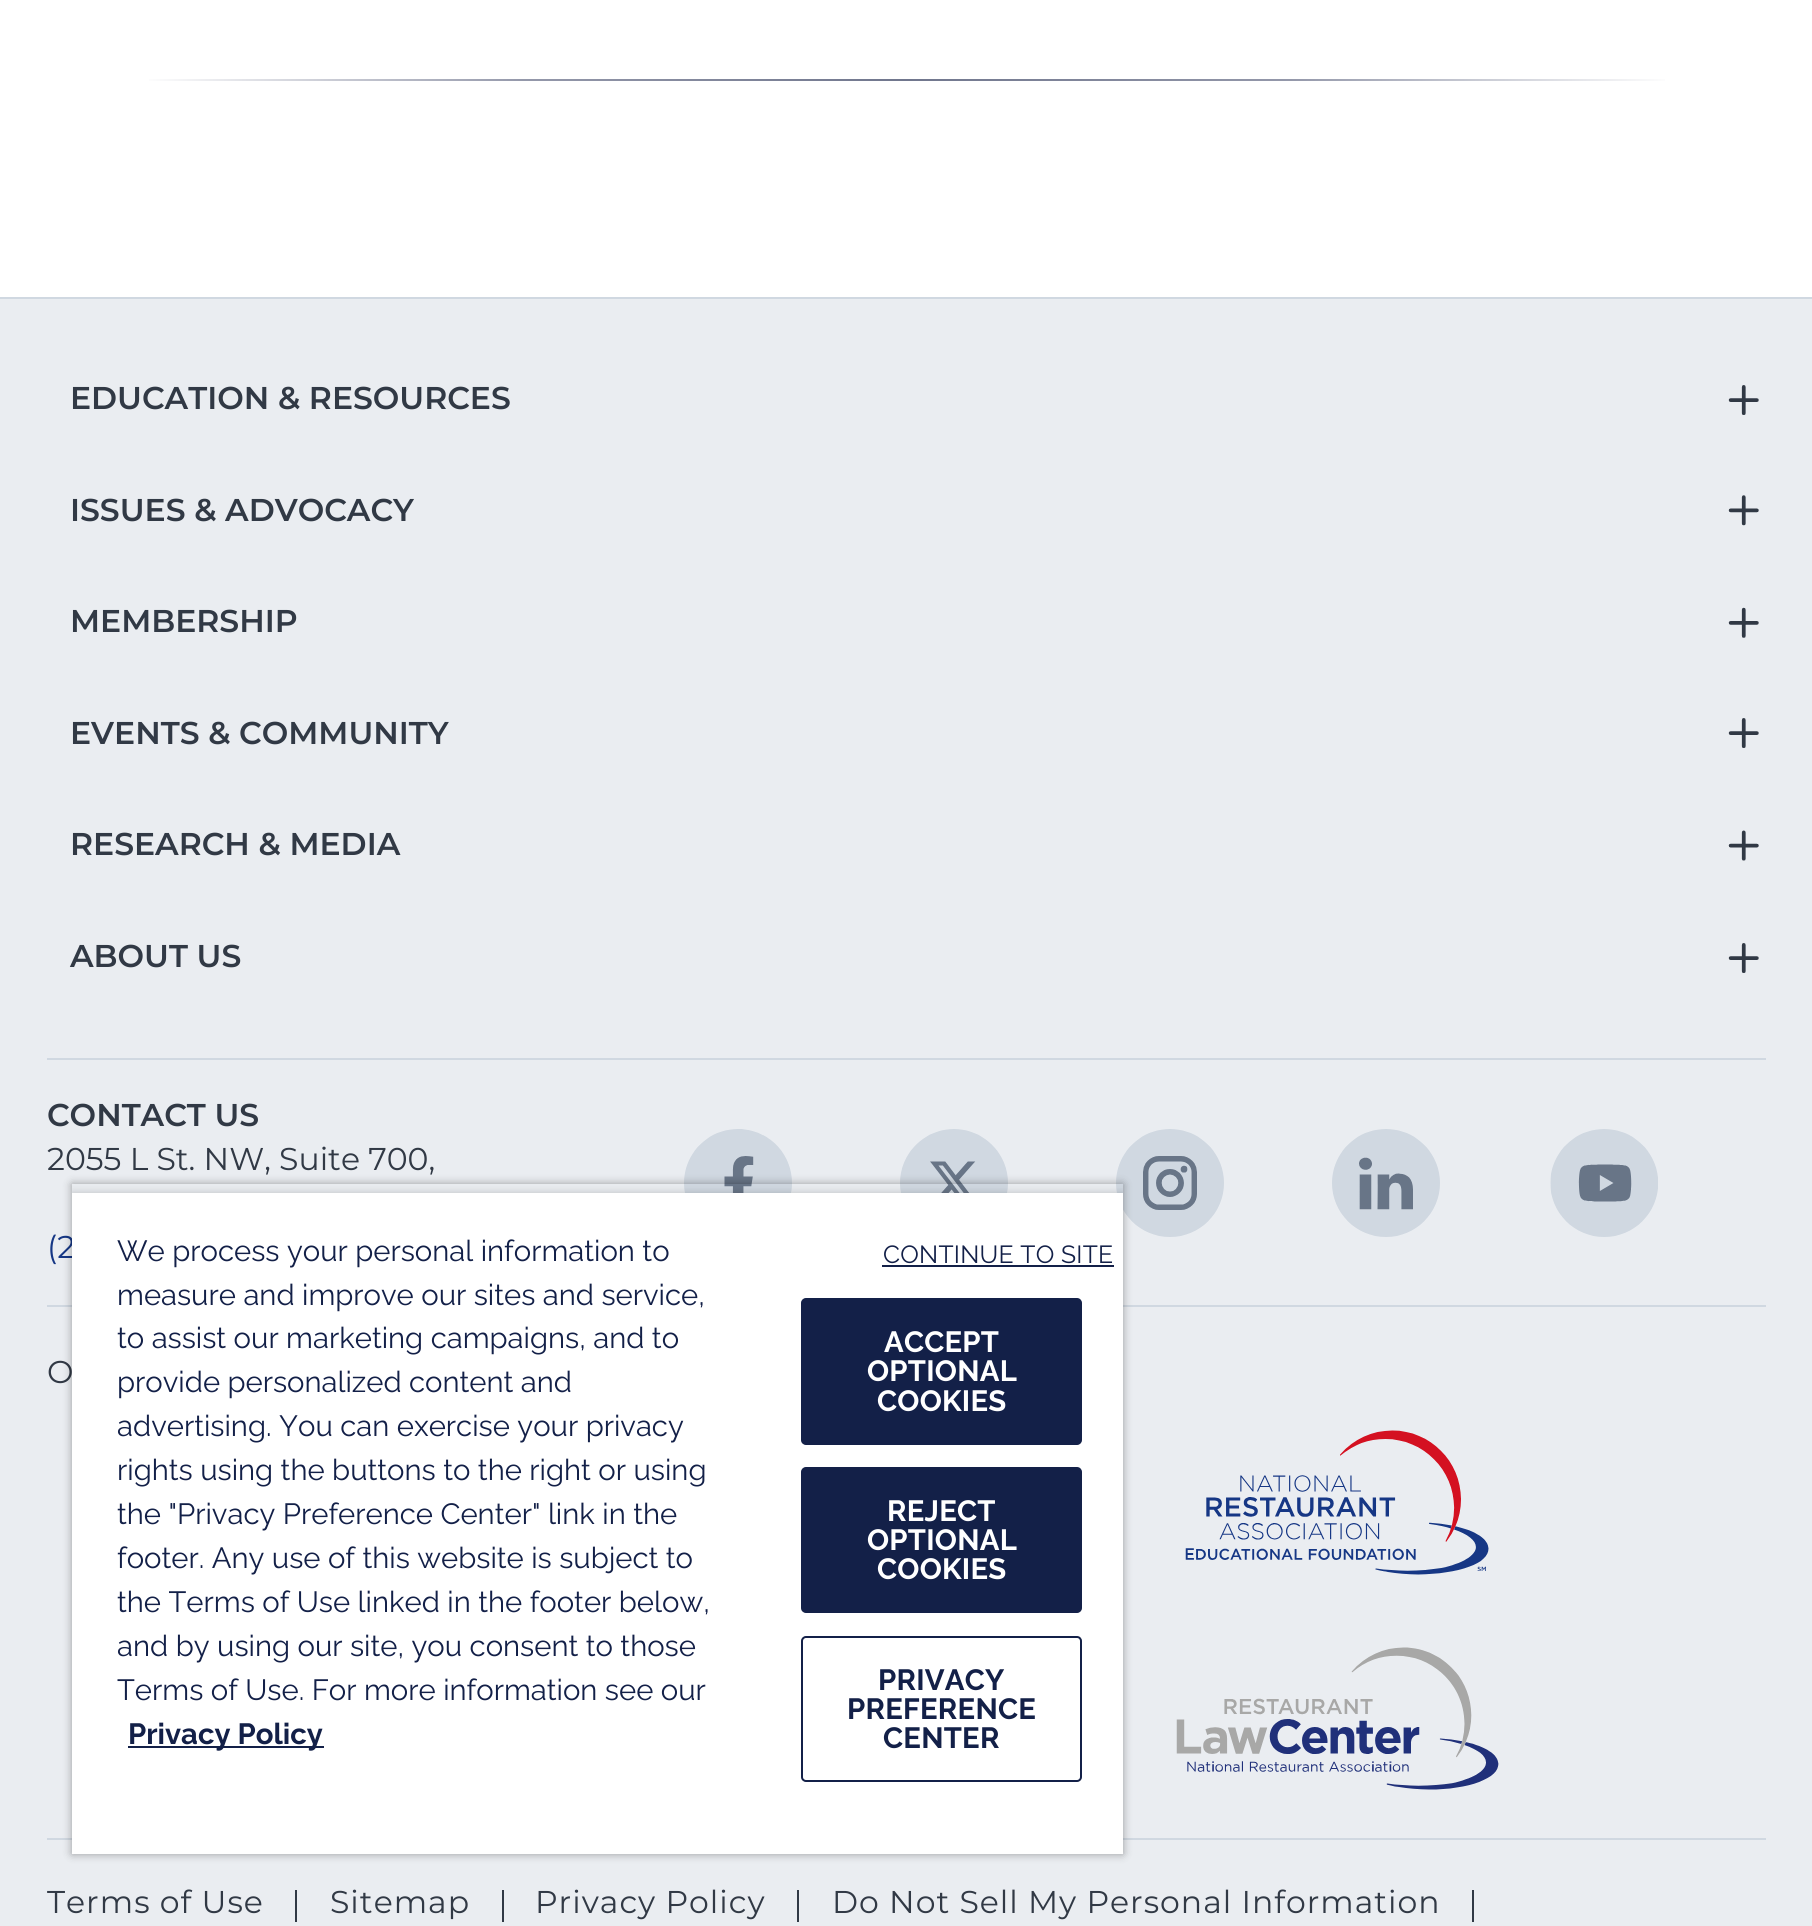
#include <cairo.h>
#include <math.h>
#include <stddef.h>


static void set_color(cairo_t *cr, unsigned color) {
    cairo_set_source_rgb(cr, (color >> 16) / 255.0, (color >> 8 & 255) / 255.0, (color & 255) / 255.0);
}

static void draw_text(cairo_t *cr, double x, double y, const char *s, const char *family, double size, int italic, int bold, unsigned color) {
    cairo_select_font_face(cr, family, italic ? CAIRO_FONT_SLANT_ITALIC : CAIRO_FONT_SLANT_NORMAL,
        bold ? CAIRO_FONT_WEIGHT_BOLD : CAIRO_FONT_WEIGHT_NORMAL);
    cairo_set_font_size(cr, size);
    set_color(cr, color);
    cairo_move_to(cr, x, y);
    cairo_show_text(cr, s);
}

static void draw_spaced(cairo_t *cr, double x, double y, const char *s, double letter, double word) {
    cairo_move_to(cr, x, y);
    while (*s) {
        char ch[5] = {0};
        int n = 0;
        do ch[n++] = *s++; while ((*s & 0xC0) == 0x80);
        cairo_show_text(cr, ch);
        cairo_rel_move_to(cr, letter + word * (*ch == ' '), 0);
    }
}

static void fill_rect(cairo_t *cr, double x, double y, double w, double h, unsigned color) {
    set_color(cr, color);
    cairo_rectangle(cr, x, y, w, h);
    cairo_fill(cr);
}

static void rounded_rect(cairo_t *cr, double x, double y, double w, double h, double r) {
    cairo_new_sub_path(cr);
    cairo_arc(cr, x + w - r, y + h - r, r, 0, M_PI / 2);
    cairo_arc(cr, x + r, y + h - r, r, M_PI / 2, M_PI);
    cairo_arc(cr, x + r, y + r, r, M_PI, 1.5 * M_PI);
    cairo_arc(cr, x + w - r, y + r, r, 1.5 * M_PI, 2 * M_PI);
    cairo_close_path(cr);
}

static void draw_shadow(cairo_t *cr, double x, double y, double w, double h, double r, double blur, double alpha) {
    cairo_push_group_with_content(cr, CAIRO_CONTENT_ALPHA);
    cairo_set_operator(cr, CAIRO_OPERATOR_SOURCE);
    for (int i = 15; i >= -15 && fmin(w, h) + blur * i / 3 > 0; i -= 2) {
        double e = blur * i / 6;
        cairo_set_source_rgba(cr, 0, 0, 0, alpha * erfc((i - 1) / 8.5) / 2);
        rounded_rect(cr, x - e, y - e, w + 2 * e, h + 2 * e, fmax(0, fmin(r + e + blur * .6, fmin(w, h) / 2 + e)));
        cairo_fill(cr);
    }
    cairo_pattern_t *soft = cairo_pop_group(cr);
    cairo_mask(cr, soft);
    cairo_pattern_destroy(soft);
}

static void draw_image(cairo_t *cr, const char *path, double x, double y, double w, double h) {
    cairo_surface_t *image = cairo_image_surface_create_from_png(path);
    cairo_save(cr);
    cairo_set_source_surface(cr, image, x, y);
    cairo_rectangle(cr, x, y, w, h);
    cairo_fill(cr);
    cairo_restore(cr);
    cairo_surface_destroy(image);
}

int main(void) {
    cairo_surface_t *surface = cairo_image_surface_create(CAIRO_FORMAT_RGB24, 1812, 1926);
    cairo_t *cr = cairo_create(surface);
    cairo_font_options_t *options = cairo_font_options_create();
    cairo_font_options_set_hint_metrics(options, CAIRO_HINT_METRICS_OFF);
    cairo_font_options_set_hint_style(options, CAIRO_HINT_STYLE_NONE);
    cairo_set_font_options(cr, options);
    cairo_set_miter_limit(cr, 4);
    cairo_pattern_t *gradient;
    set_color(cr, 0xFFFFFF);
    cairo_paint(cr);
    gradient = cairo_pattern_create_linear(1674, 80, 140, 80);
    cairo_pattern_add_color_stop_rgba(gradient, 0, 1, 1, 1, 1);
    cairo_pattern_add_color_stop_rgba(gradient, 0.25, 0.58, 0.596, 0.667, 1);
    cairo_pattern_add_color_stop_rgba(gradient, 0.5, 0.439, 0.463, 0.553, 1);
    cairo_pattern_add_color_stop_rgba(gradient, 0.75, 0.58, 0.596, 0.667, 1);
    cairo_pattern_add_color_stop_rgba(gradient, 1, 1, 1, 1, 1);
    cairo_set_source(cr, gradient);
    cairo_pattern_destroy(gradient);
    cairo_rectangle(cr, 149, 79, 1516, 2);
    cairo_fill(cr);
    fill_rect(cr, 0, 299, 1812, 1627, 0xEAEDF1);
    fill_rect(cr, 0, 297, 1812, 2, 0xD0D8E1);
    fill_rect(cr, 47, 1058, 1719, 2, 0xD0D8E1);
    draw_text(cr, 70, 409, "EDUCATION & RESOURCES", "Montserrat SemiBold", 31.5, 0, 0, 0x313945);
    draw_image(cr, "assets/img1.png", 1728, 385, 31, 30);
    draw_text(cr, 70, 521, "ISSUES & ADVOCACY", "Montserrat SemiBold", 31.5, 0, 0, 0x313945);
    draw_image(cr, "assets/img2.png", 1728, 495, 31, 31);
    draw_text(cr, 70, 632, "MEMBERSHIP", "Montserrat SemiBold", 31.5, 0, 0, 0x313945);
    draw_image(cr, "assets/img3.png", 1728, 607, 31, 31);
    draw_text(cr, 70, 744, "EVENTS & COMMUNITY", "Montserrat SemiBold", 31.5, 0, 0, 0x313945);
    draw_image(cr, "assets/img1.png", 1728, 718, 31, 30);
    draw_text(cr, 70, 855, "RESEARCH & MEDIA", "Montserrat SemiBold", 31.5, 0, 0, 0x313945);
    draw_image(cr, "assets/img4.png", 1728, 830, 31, 31);
    draw_text(cr, 70, 967, "ABOUT US", "Montserrat SemiBold", 31.5, 0, 0, 0x313945);
    draw_image(cr, "assets/img1.png", 1728, 943, 31, 30);
    fill_rect(cr, 47, 1305, 1719, 2, 0xD0D8E1);
    draw_text(cr, 47, 1126, "CONTACT US", "Montserrat SemiBold", 31.5, 0, 0, 0x313945);
    draw_text(cr, 47, 1170, "2055 L St. NW, Suite 700,", "Montserrat", 31.5, 0, 0, 0x313945);
    draw_text(cr, 47, 1258, "(2", "Montserrat", 31.5, 0, 0, 0x163785);
    draw_image(cr, "assets/img5.png", 684, 1129, 108, 64);
    draw_image(cr, "assets/img6.png", 900, 1129, 108, 64);
    draw_image(cr, "assets/img7.png", 1116, 1129, 108, 108);
    draw_image(cr, "assets/img8.png", 1332, 1129, 108, 108);
    draw_image(cr, "assets/img9.png", 1550, 1129, 108, 108);
    fill_rect(cr, 47, 1838, 1719, 2, 0xD0D8E1);
    draw_text(cr, 47, 1383, "O", "Montserrat", 31.5, 0, 0, 0x313945);
    draw_image(cr, "assets/img10.png", 1185, 1430, 304, 145);
    draw_image(cr, "assets/img11.png", 1176, 1647, 323, 143);
    draw_spaced(cr, 47, 1913, "Terms of Use", 1, 0);
    fill_rect(cr, 295, 1890, 2, 32, 0x313945);
    draw_spaced(cr, 330, 1913, "Sitemap", 1, 0);
    fill_rect(cr, 502, 1890, 2, 32, 0x313945);
    draw_spaced(cr, 535, 1913, "Privacy Policy", 1, 0);
    fill_rect(cr, 797, 1890, 2, 32, 0x313945);
    draw_spaced(cr, 832, 1913, "Do Not Sell My Personal Information", 1, 0);
    fill_rect(cr, 1472, 1890, 2, 32, 0x313945);
    cairo_save(cr);
    cairo_set_fill_rule(cr, CAIRO_FILL_RULE_EVEN_ODD);
    cairo_new_path(cr);
    cairo_move_to(cr, 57, 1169);
    cairo_line_to(cr, 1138, 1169);
    cairo_line_to(cr, 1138, 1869);
    cairo_line_to(cr, 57, 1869);
    cairo_close_path(cr);
    cairo_move_to(cr, 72, 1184);
    cairo_line_to(cr, 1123, 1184);
    cairo_line_to(cr, 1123, 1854);
    cairo_line_to(cr, 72, 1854);
    cairo_close_path(cr);
    cairo_clip(cr);
    set_color(cr, 0x000000);
    draw_shadow(cr, 72, 1184, 1051, 670, 0, 4.5, 0.35);
    cairo_restore(cr);
    cairo_save(cr);
    cairo_rectangle(cr, 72, 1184, 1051, 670);
    cairo_clip(cr);
    set_color(cr, 0x000000);
    draw_shadow(cr, 72, 1193, 1051, 661, 0, 4.5, 0.2);
    cairo_restore(cr);
    fill_rect(cr, 72, 1193, 1051, 661, 0xFFFFFF);
    draw_text(cr, 117, 1261, "We process your personal information to", "Raleway", 29.25, 0, 0, 0x132048);
    draw_text(cr, 117, 1305, "measure and improve our sites and service,", "Raleway", 29.25, 0, 0, 0x132048);
    draw_text(cr, 117, 1348, "to assist our marketing campaigns, and to", "Raleway", 29.25, 0, 0, 0x132048);
    draw_text(cr, 117, 1392, "provide personalized content and", "Raleway", 29.25, 0, 0, 0x132048);
    draw_text(cr, 117, 1436, "advertising. You can exercise your privacy", "Raleway", 29.25, 0, 0, 0x132048);
    draw_text(cr, 117, 1480, "rights using the buttons to the right or using", "Raleway", 29.25, 0, 0, 0x132048);
    draw_text(cr, 117, 1524, "the \"Privacy Preference Center\" link in the", "Raleway", 29.25, 0, 0, 0x132048);
    draw_text(cr, 117, 1568, "footer. Any use of this website is subject to", "Raleway", 29.25, 0, 0, 0x132048);
    draw_text(cr, 117, 1612, "the Terms of Use linked in the footer below,", "Raleway", 29.25, 0, 0, 0x132048);
    draw_text(cr, 117, 1656, "and by using our site, you consent to those", "Raleway", 29.25, 0, 0, 0x132048);
    draw_text(cr, 117, 1700, "Terms of Use. For more information see our", "Raleway", 29.25, 0, 0, 0x132048);
    fill_rect(cr, 128, 1746, 196, 2, 0x132048);
    draw_text(cr, 128, 1744, "Privacy Policy", "Raleway", 29.25, 0, 1, 0x132048);
    cairo_select_font_face(cr, "Raleway", CAIRO_FONT_SLANT_NORMAL, CAIRO_FONT_WEIGHT_NORMAL);
    cairo_set_font_size(cr, 24.75);
    draw_spaced(cr, 883, 1263, "CONTINUE TO SITE", 0.25, 0);
    fill_rect(cr, 882, 1265, 232, 2, 0x132048);
    rounded_rect(cr, 802, 1299, 279, 145, 4);
    cairo_fill_preserve(cr);
    cairo_stroke(cr);
    cairo_select_font_face(cr, "Raleway", CAIRO_FONT_SLANT_NORMAL, CAIRO_FONT_WEIGHT_BOLD);
    cairo_set_font_size(cr, 29.25);
    set_color(cr, 0xFFFFFF);
    draw_spaced(cr, 884, 1352, "ACCEPT", 0.25, 0);
    draw_spaced(cr, 867, 1381, "OPTIONAL", 0.25, 0);
    draw_spaced(cr, 877, 1411, "COOKIES", 0.25, 0);
    set_color(cr, 0x132048);
    rounded_rect(cr, 802, 1468, 279, 144, 4);
    cairo_fill_preserve(cr);
    cairo_stroke(cr);
    set_color(cr, 0xFFFFFF);
    draw_spaced(cr, 887, 1521, "REJECT", 0.25, 0);
    draw_spaced(cr, 867, 1550, "OPTIONAL", 0.25, 0);
    draw_spaced(cr, 877, 1579, "COOKIES", 0.25, 0);
    rounded_rect(cr, 802, 1637, 279, 144, 4);
    set_color(cr, 0x132048);
    cairo_stroke(cr);
    draw_spaced(cr, 878, 1690, "PRIVACY", 0.25, 0);
    draw_spaced(cr, 847, 1719, "PREFERENCE", 0.25, 0);
    draw_spaced(cr, 883, 1748, "CENTER", 0.25, 0);
    cairo_surface_write_to_png(surface, "output.png");
    cairo_font_options_destroy(options);
    cairo_destroy(cr);
    cairo_surface_destroy(surface);
    return 0;
}
